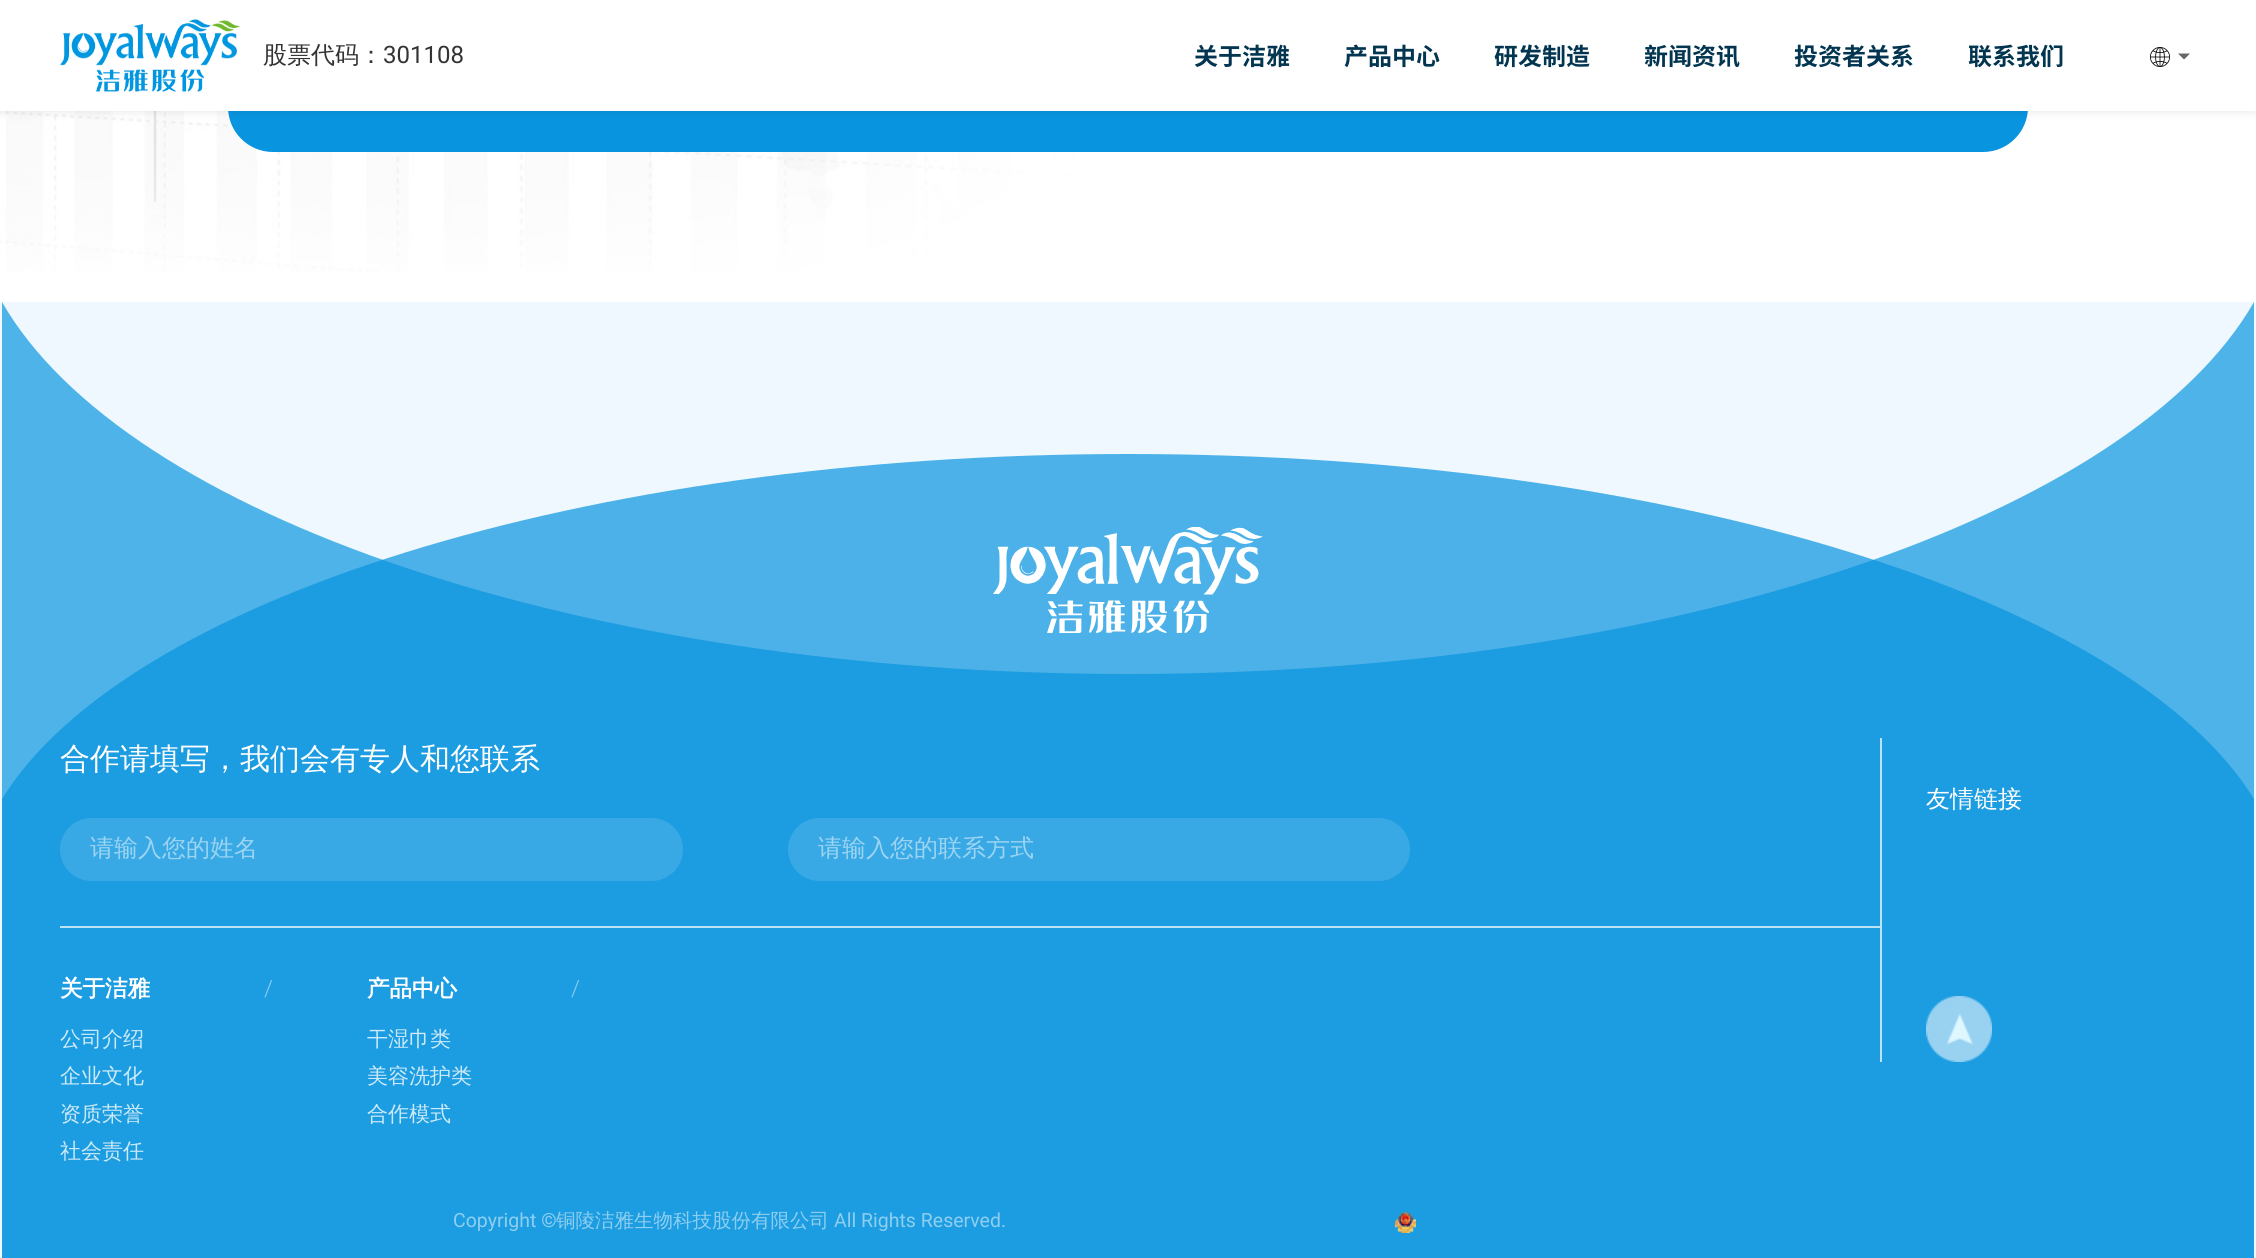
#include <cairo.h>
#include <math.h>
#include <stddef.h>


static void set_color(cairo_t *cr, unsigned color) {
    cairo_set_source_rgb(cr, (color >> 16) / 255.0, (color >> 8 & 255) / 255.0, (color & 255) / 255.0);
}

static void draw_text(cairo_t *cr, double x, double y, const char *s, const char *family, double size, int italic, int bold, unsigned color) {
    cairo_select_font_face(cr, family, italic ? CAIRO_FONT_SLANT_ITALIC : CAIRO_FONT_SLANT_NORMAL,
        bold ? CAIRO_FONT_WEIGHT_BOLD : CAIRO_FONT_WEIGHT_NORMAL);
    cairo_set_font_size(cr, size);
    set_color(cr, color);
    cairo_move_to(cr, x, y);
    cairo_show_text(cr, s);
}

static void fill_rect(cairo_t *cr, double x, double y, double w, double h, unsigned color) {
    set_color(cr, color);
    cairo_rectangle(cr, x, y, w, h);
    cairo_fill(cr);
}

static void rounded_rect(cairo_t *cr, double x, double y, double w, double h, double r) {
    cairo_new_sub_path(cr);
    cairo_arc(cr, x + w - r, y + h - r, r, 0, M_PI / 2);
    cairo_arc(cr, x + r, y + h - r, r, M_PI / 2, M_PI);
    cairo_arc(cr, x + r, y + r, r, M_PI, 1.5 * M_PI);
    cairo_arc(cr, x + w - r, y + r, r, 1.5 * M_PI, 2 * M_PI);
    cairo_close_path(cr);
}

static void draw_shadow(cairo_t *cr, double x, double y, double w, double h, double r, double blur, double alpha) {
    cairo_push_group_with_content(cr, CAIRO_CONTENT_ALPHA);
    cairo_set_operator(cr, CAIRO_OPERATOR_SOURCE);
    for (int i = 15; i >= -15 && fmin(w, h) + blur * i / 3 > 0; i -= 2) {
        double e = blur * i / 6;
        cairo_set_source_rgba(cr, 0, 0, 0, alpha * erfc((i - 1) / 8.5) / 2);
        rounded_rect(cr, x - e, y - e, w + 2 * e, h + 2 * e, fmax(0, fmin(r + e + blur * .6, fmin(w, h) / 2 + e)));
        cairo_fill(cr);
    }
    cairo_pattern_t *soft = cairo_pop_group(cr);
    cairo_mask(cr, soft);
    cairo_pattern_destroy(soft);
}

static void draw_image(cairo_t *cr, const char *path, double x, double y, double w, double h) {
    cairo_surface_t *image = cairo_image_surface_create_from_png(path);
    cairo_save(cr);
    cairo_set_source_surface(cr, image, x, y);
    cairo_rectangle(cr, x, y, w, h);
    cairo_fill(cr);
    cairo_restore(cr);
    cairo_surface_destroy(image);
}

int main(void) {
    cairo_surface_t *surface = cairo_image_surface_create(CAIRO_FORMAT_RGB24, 2256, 1258);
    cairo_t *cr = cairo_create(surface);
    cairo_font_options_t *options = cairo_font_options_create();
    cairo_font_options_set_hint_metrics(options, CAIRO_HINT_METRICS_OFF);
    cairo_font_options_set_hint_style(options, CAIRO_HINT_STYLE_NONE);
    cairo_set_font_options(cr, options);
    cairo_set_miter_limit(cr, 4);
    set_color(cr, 0xFFFFFF);
    cairo_paint(cr);
    draw_image(cr, "assets/img1.png", 0, 111, 1112, 161);
    set_color(cr, 0x0894DF);
    rounded_rect(cr, 228, -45, 1800, 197, 45);
    cairo_fill(cr);
    set_color(cr, 0x000000);
    draw_shadow(cr, 0, 0, 2256, 111, 0, 5, 0.1);
    fill_rect(cr, 0, 0, 2256, 111, 0xFFFFFF);
    draw_image(cr, "assets/img2.png", 60, 19, 180, 73);
    draw_text(cr, 263, 63, "股票代码：", "WenQuanYi Zen Hei Medium", 24, 0, 0, 0x333333);
    draw_text(cr, 383, 63, "301108", "Roboto", 24, 0, 0, 0x333333);
    draw_text(cr, 1194, 65, "关于洁雅", "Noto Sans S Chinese", 24, 0, 1, 0x023550);
    draw_text(cr, 1344, 65, "产品中心", "Noto Sans S Chinese", 24, 0, 1, 0x023550);
    draw_text(cr, 1494, 65, "研发制造", "Noto Sans S Chinese", 24, 0, 1, 0x023550);
    draw_text(cr, 1644, 65, "新闻资讯", "Noto Sans S Chinese", 24, 0, 1, 0x023550);
    draw_text(cr, 1794, 65, "投资者关系", "Noto Sans S Chinese", 24, 0, 1, 0x023550);
    draw_text(cr, 1968, 65, "联系我们", "Noto Sans S Chinese", 24, 0, 1, 0x023550);
    draw_image(cr, "assets/img3.png", 2150, 47, 20, 20);
    set_color(cr, 0x666666);
    cairo_new_path(cr);
    cairo_move_to(cr, 2178, 53.5);
    cairo_line_to(cr, 2190, 53.5);
    cairo_line_to(cr, 2184, 59.5);
    cairo_close_path(cr);
    cairo_fill(cr);
    fill_rect(cr, 0, 302, 2256, 956, 0xEEF8FE);
    set_color(cr, 0x4DB3E8);
    cairo_new_path(cr);
    cairo_move_to(cr, 1128, 674);
    cairo_curve_to(cr, 582, 674, 124, 515, 2, 302);
    cairo_line_to(cr, 2, 1145);
    cairo_line_to(cr, 2254, 1145);
    cairo_line_to(cr, 2254, 302);
    cairo_curve_to(cr, 2132, 515, 1674, 674, 1128, 674);
    cairo_close_path(cr);
    cairo_fill(cr);
    cairo_set_source_rgba(cr, 0.031, 0.58, 0.871, 0.7);
    cairo_new_path(cr);
    cairo_move_to(cr, 2254, 799);
    cairo_curve_to(cr, 2132, 601, 1674, 454, 1128, 454);
    cairo_curve_to(cr, 582, 454, 124, 601, 2, 799);
    cairo_line_to(cr, 2, 1145);
    cairo_line_to(cr, 2254, 1145);
    cairo_close_path(cr);
    cairo_fill(cr);
    fill_rect(cr, 2, 1145, 2252, 113, 0x1D9DE1);
    draw_image(cr, "assets/img4.png", 993, 527, 270, 106);
    draw_text(cr, 60, 769, "合作请填写，我们会有专人和您联系", "WenQuanYi Zen Hei Medium", 30, 0, 0, 0xFFFFFF);
    set_color(cr, 0x39A9E5);
    rounded_rect(cr, 60, 818, 623, 63, 31.5);
    cairo_fill(cr);
    draw_text(cr, 90, 856, "请输入您的姓名", "WenQuanYi Zen Hei Medium", 24, 0, 0, 0x9CD4F2);
    set_color(cr, 0x39A9E5);
    rounded_rect(cr, 788, 818, 622, 63, 31.5);
    cairo_fill(cr);
    draw_text(cr, 818, 856, "请输入您的联系方式", "WenQuanYi Zen Hei Medium", 24, 0, 0, 0x9CD4F2);
    fill_rect(cr, 60, 926, 1820, 2, 0xBBE2F6);
    draw_text(cr, 60, 996, "关于洁雅", "WenQuanYi Zen Hei", 22.5, 0, 1, 0xFFFFFF);
    draw_text(cr, 264, 996, "/", "Roboto Light", 22.5, 0, 0, 0x8ECEF0);
    draw_text(cr, 60, 1046, "公司介绍", "WenQuanYi Zen Hei Medium", 21, 0, 0, 0xCDEAF8);
    draw_text(cr, 60, 1083, "企业文化", "WenQuanYi Zen Hei Medium", 21, 0, 0, 0xCDEAF8);
    draw_text(cr, 60, 1121, "资质荣誉", "WenQuanYi Zen Hei Medium", 21, 0, 0, 0xCDEAF8);
    draw_text(cr, 60, 1158, "社会责任", "WenQuanYi Zen Hei Medium", 21, 0, 0, 0xCDEAF8);
    draw_text(cr, 367, 996, "产品中心", "WenQuanYi Zen Hei", 22.5, 0, 1, 0xFFFFFF);
    draw_text(cr, 571, 996, "/", "Roboto Light", 22.5, 0, 0, 0x8ECEF0);
    draw_text(cr, 367, 1046, "干湿巾类", "WenQuanYi Zen Hei Medium", 21, 0, 0, 0xCDEAF8);
    draw_text(cr, 367, 1083, "美容洗护类", "WenQuanYi Zen Hei Medium", 21, 0, 0, 0xCDEAF8);
    draw_text(cr, 367, 1121, "合作模式", "WenQuanYi Zen Hei Medium", 21, 0, 0, 0xCDEAF8);
    fill_rect(cr, 1880, 738, 2, 324, 0xBBE2F6);
    draw_text(cr, 1926, 807, "友情链接", "WenQuanYi Zen Hei Medium", 24, 0, 0, 0xFFFFFF);
    draw_image(cr, "assets/img5.png", 1926, 996, 66, 66);
    draw_text(cr, 453, 1227, "Copyright ©", "Roboto", 19.5, 0, 0, 0x8ECEF0);
    draw_text(cr, 556, 1227, "铜陵洁雅生物科技股份有限公司", "WenQuanYi Zen Hei Medium", 19.5, 0, 0, 0x8ECEF0);
    draw_text(cr, 834, 1227, "All Rights Reserved.", "Roboto", 19.5, 0, 0, 0x8ECEF0);
    draw_image(cr, "assets/img6.png", 1395, 1212, 21, 21);
    cairo_surface_write_to_png(surface, "output.png");
    cairo_font_options_destroy(options);
    cairo_destroy(cr);
    cairo_surface_destroy(surface);
    return 0;
}
